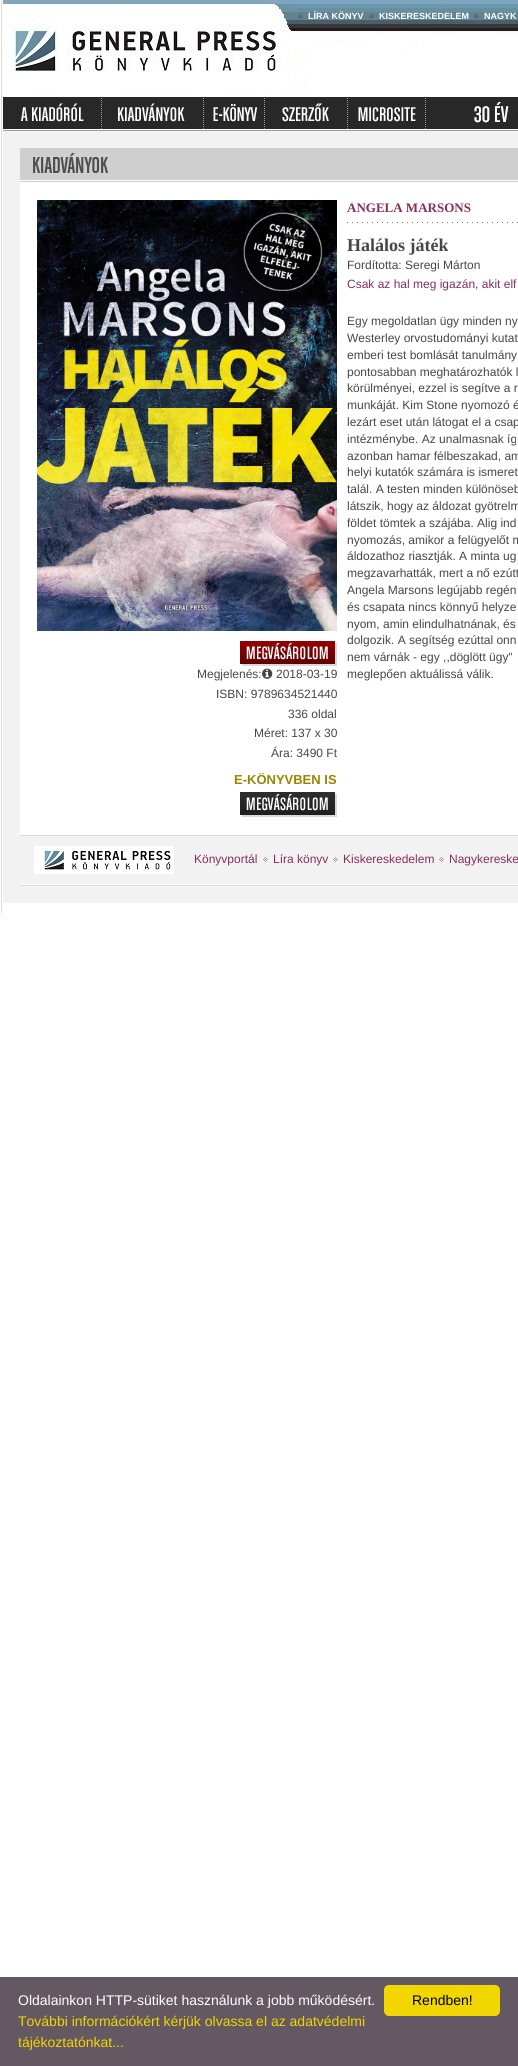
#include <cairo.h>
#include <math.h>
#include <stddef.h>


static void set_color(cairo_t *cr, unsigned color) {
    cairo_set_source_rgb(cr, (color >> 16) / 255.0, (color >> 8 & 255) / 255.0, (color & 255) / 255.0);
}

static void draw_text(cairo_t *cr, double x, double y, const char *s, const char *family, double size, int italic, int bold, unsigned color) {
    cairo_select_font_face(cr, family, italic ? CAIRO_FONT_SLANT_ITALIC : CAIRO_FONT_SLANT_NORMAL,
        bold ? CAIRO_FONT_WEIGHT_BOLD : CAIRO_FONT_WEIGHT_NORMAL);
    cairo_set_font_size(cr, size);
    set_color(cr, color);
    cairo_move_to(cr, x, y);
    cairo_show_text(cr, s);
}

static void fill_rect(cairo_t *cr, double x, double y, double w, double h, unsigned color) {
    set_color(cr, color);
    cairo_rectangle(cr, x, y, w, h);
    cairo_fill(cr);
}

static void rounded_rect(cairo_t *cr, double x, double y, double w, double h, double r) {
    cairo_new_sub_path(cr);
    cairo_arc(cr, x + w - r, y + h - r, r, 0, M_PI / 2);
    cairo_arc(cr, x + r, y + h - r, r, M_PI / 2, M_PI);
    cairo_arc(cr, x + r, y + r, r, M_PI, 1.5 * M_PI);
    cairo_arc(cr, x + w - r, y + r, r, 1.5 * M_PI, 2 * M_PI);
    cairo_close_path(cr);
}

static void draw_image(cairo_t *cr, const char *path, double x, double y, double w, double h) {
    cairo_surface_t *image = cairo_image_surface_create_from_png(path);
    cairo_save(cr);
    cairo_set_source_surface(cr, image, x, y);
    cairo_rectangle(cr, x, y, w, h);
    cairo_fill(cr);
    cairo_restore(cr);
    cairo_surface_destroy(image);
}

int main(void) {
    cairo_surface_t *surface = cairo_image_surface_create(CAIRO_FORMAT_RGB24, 518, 2066);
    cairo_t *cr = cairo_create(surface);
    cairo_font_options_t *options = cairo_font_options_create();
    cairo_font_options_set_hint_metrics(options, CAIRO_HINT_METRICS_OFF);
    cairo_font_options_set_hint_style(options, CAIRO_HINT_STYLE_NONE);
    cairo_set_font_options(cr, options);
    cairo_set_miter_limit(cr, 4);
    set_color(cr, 0xFFFFFF);
    cairo_paint(cr);
    fill_rect(cr, 1, 0, 1, 913, 0xDCDCDC);
    draw_image(cr, "assets/img1.png", 3, 0, 295, 97);
    draw_image(cr, "assets/img2.png", 298, 0, 220, 97);
    draw_image(cr, "assets/img3.png", 298, 14, 5, 5);
    draw_text(cr, 308, 19, "LÍRA KÖNYV", "Liberation Sans", 9, 0, 1, 0xFFFFFF);
    draw_image(cr, "assets/img3.png", 369, 14, 5, 5);
    draw_text(cr, 379, 19, "KISKERESKEDELEM", "Liberation Sans", 9, 0, 1, 0xFFFFFF);
    draw_image(cr, "assets/img3.png", 474, 14, 5, 5);
    draw_text(cr, 484, 19, "NAGYK", "Liberation Sans", 9, 0, 1, 0xFFFFFF);
    draw_image(cr, "assets/img4.png", 3, 97, 515, 34);
    draw_image(cr, "assets/img5.png", 20, 100, 64, 23);
    draw_image(cr, "assets/img6.png", 101, 98, 1, 31);
    draw_image(cr, "assets/img7.png", 118, 98, 68, 24);
    draw_image(cr, "assets/img6.png", 203, 98, 1, 31);
    draw_image(cr, "assets/img8.png", 213, 102, 46, 21);
    draw_image(cr, "assets/img6.png", 264, 98, 1, 31);
    draw_image(cr, "assets/img9.png", 282, 100, 47, 24);
    draw_image(cr, "assets/img6.png", 347, 98, 1, 31);
    draw_image(cr, "assets/img10.png", 358, 107, 58, 15);
    draw_image(cr, "assets/img6.png", 425, 98, 1, 31);
    draw_image(cr, "assets/img11.png", 472, 98, 41, 31);
    fill_rect(cr, 3, 131, 515, 772, 0xF2F2F2);
    draw_image(cr, "assets/img12.png", 20, 148, 498, 35);
    fill_rect(cr, 20, 183, 498, 652, 0xFFFFFF);
    draw_text(cr, 347, 212, "ANGELA MARSONS", "Liberation Serif", 13, 0, 1, 0x872E5A);
    draw_image(cr, "assets/img13.png", 347, 222, 171, 1);
    draw_text(cr, 347, 251, "Halálos játék", "Liberation Serif", 18, 0, 1, 0x464646);
    draw_text(cr, 347, 269, "Fordította: Seregi Márton", "Liberation Sans", 12, 0, 0, 0x464646);
    draw_text(cr, 347, 288, "Csak az hal meg igazán, akit elf", "Liberation Sans", 12, 0, 0, 0x872E5A);
    draw_text(cr, 347, 325, "Egy megoldatlan ügy minden ny", "Liberation Sans", 12, 0, 0, 0x464646);
    draw_text(cr, 347, 342, "Westerley orvostudományi kutat", "Liberation Sans", 12, 0, 0, 0x464646);
    draw_text(cr, 347, 359, "emberi test bomlását tanulmány", "Liberation Sans", 12, 0, 0, 0x464646);
    draw_text(cr, 347, 376, "pontosabban meghatározhatók l", "Liberation Sans", 12, 0, 0, 0x464646);
    draw_text(cr, 347, 392, "körülményei, ezzel is segítve a r", "Liberation Sans", 12, 0, 0, 0x464646);
    draw_text(cr, 347, 409, "munkáját. Kim Stone nyomozó é", "Liberation Sans", 12, 0, 0, 0x464646);
    draw_text(cr, 347, 426, "lezárt eset után látogat el a csap", "Liberation Sans", 12, 0, 0, 0x464646);
    draw_text(cr, 347, 443, "intézménybe. Az unalmasnak íg", "Liberation Sans", 12, 0, 0, 0x464646);
    draw_text(cr, 347, 460, "azonban hamar félbeszakad, am", "Liberation Sans", 12, 0, 0, 0x464646);
    draw_text(cr, 347, 476, "helyi kutatók számára is ismeret", "Liberation Sans", 12, 0, 0, 0x464646);
    draw_text(cr, 347, 493, "talál. A testen minden különöseb", "Liberation Sans", 12, 0, 0, 0x464646);
    draw_text(cr, 347, 510, "látszik, hogy az áldozat gyötrelm", "Liberation Sans", 12, 0, 0, 0x464646);
    draw_text(cr, 347, 527, "földet tömtek a szájába. Alig ind", "Liberation Sans", 12, 0, 0, 0x464646);
    draw_text(cr, 347, 544, "nyomozás, amikor a felügyelőt m", "Liberation Sans", 12, 0, 0, 0x464646);
    draw_text(cr, 347, 560, "áldozathoz riasztják. A minta ug", "Liberation Sans", 12, 0, 0, 0x464646);
    draw_text(cr, 347, 577, "megzavarhatták, mert a nő ezútt", "Liberation Sans", 12, 0, 0, 0x464646);
    draw_text(cr, 347, 594, "Angela Marsons legújabb regén", "Liberation Sans", 12, 0, 0, 0x464646);
    draw_text(cr, 347, 611, "és csapata nincs könnyű helyze", "Liberation Sans", 12, 0, 0, 0x464646);
    draw_text(cr, 347, 628, "nyom, amin elindulhatnának, és", "Liberation Sans", 12, 0, 0, 0x464646);
    draw_text(cr, 347, 644, "dolgozik. A segítség ezúttal onn", "Liberation Sans", 12, 0, 0, 0x464646);
    draw_text(cr, 347, 661, "nem várnák - egy ,,döglött ügy\"", "Liberation Sans", 12, 0, 0, 0x464646);
    draw_text(cr, 347, 678, "meglepően aktuálissá válik.", "Liberation Sans", 12, 0, 0, 0x464646);
    draw_image(cr, "assets/img14.png", 37, 200, 300, 431);
    draw_image(cr, "assets/img15.png", 240, 641, 97, 25);
    draw_text(cr, 197, 678, "Megjelenés:", "Liberation Sans", 12, 0, 0, 0x464646);
    draw_image(cr, "assets/img16.png", 262, 668, 11, 11);
    draw_text(cr, 276, 678, "2018-03-19", "Liberation Sans", 12, 0, 0, 0x464646);
    draw_text(cr, 216, 698, "ISBN: 9789634521440", "Liberation Sans", 12, 0, 0, 0x464646);
    draw_text(cr, 288, 718, "336 oldal", "Liberation Sans", 12, 0, 0, 0x464646);
    draw_text(cr, 254, 737, "Méret: 137 x 30", "Liberation Sans", 12, 0, 0, 0x464646);
    draw_text(cr, 271, 757, "Ára: 3490 Ft", "Liberation Sans", 12, 0, 0, 0x464646);
    draw_text(cr, 234, 784, "E-KÖNYVBEN IS", "Liberation Sans", 13, 0, 1, 0x998600);
    draw_image(cr, "assets/img17.png", 240, 792, 97, 25);
    fill_rect(cr, 20, 835, 498, 1, 0xDCDCDC);
    draw_image(cr, "assets/img18.png", 34, 846, 140, 28);
    draw_text(cr, 194, 863, "Könyvportál", "Liberation Sans", 12, 0, 0, 0x872E5A);
    draw_image(cr, "assets/img19.png", 263, 857, 5, 5);
    draw_text(cr, 273, 863, "Líra könyv", "Liberation Sans", 12, 0, 0, 0x872E5A);
    draw_image(cr, "assets/img19.png", 333, 857, 5, 5);
    draw_text(cr, 343, 863, "Kiskereskedelem", "Liberation Sans", 12, 0, 0, 0x872E5A);
    draw_image(cr, "assets/img19.png", 439, 857, 5, 5);
    draw_text(cr, 449, 863, "Nagykereske", "Liberation Sans", 12, 0, 0, 0x872E5A);
    fill_rect(cr, 20, 884, 498, 1, 0xFFFFFF);
    fill_rect(cr, 20, 885, 498, 1, 0xDCDCDC);
    fill_rect(cr, 0, 1977, 518, 89, 0x645862);
    draw_text(cr, 18, 2005, "Oldalainkon HTTP-sütiket használunk a jobb működésért.", "Liberation Sans", 14, 0, 0, 0xFFFFFF);
    draw_text(cr, 18, 2026, "További információkért kérjük olvassa el az adatvédelmi", "Liberation Sans", 14, 0, 0, 0xF1D600);
    draw_text(cr, 18, 2047, "tájékoztatónkat...", "Liberation Sans", 14, 0, 0, 0xF1D600);
    rounded_rect(cr, 384, 1985, 116, 31, 5);
    cairo_fill(cr);
    draw_text(cr, 412, 2005, "Rendben!", "Liberation Sans", 14, 0, 0, 0x000000);
    cairo_surface_write_to_png(surface, "output.png");
    cairo_font_options_destroy(options);
    cairo_destroy(cr);
    cairo_surface_destroy(surface);
    return 0;
}
